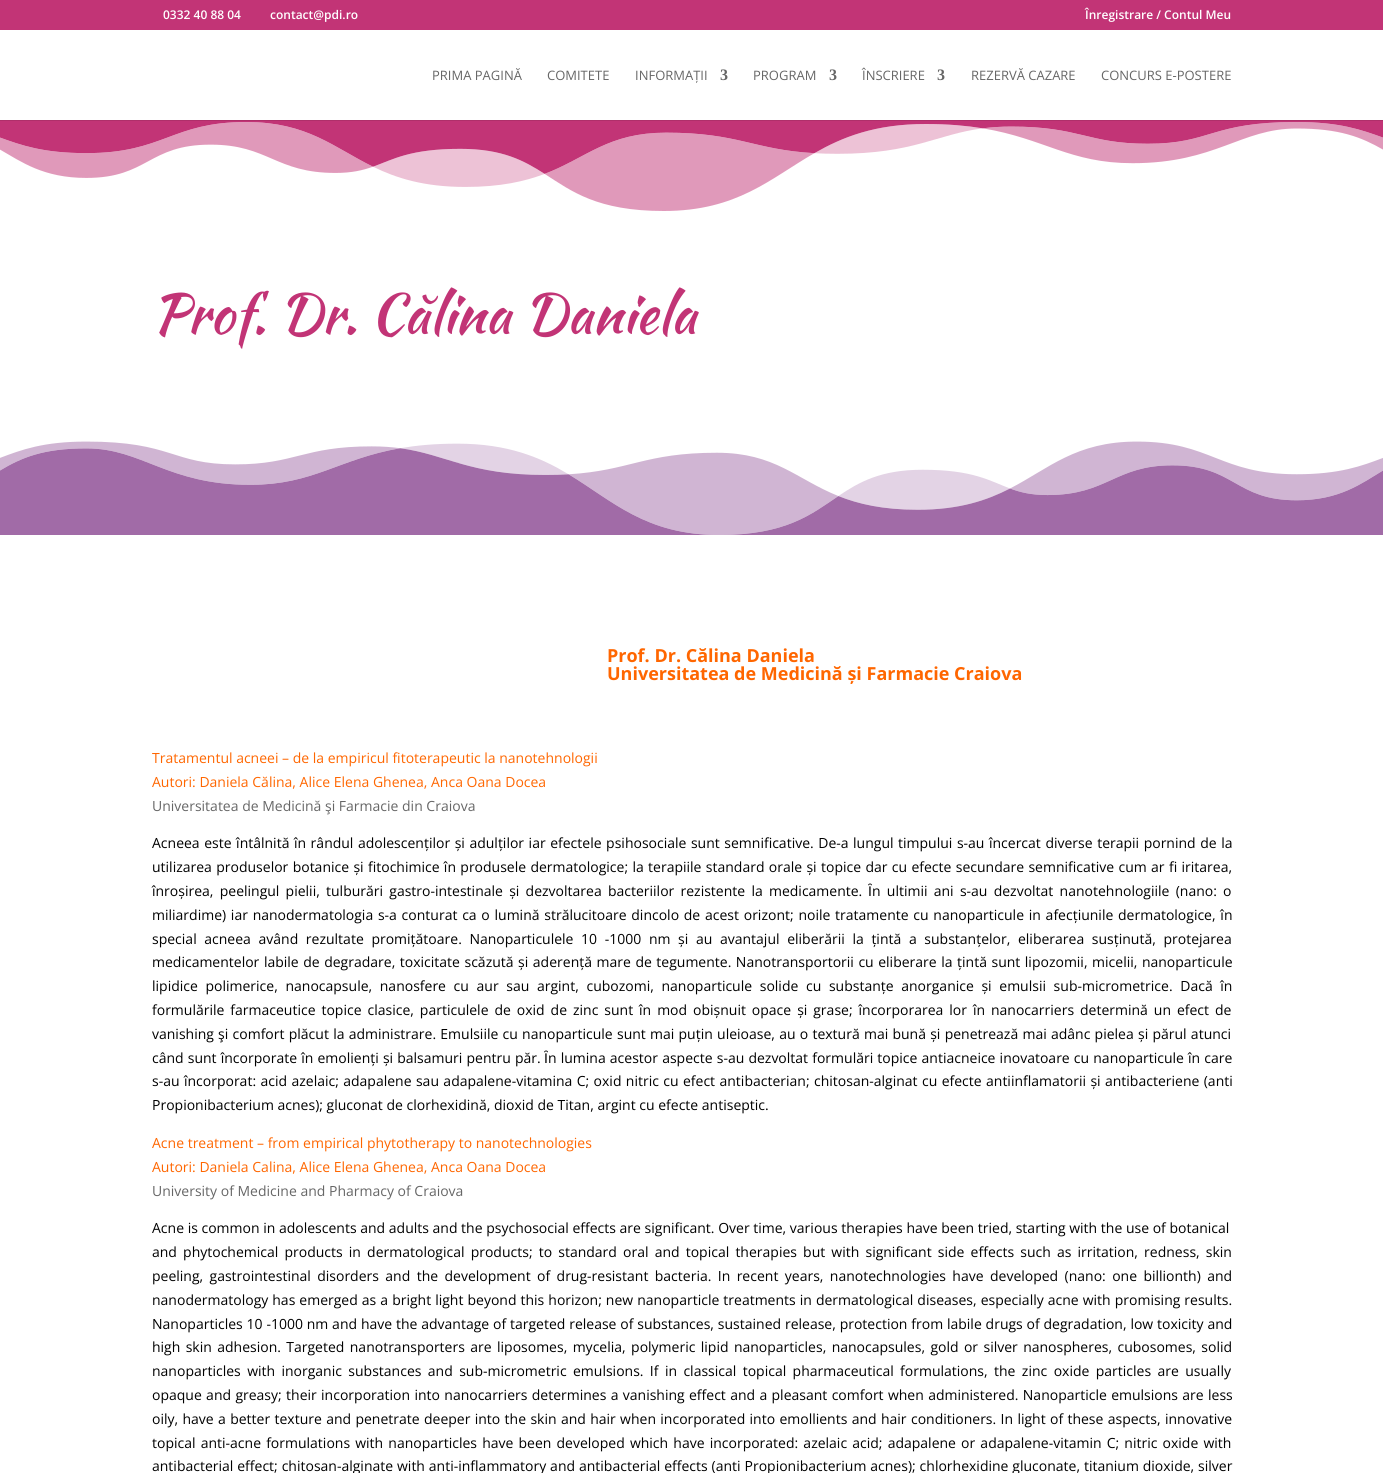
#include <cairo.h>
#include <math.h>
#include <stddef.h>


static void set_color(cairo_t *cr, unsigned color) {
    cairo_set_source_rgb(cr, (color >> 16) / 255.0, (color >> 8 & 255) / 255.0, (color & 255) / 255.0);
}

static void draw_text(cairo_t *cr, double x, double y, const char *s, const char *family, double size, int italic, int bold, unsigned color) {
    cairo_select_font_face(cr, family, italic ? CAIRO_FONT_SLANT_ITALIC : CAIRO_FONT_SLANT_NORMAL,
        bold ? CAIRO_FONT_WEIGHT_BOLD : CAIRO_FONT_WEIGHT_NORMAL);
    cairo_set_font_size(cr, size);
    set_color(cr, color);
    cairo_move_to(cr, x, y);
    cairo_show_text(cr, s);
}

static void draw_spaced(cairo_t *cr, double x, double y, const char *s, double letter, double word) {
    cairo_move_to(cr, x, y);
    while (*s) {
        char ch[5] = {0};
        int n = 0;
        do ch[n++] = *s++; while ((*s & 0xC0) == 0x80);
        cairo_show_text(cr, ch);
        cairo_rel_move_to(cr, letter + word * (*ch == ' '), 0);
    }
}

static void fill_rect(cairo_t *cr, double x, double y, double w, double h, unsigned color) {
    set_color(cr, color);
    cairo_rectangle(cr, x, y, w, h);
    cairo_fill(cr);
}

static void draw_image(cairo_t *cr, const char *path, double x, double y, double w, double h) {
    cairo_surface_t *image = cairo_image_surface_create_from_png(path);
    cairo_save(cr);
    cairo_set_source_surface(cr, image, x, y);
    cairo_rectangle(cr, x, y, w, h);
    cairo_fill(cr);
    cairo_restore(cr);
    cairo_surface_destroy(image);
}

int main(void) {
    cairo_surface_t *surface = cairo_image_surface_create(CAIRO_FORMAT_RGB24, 1383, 1473);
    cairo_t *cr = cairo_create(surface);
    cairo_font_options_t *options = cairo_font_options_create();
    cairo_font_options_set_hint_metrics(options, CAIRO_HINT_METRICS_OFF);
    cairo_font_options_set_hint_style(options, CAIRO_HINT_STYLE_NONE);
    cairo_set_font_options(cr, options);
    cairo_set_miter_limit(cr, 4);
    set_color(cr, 0xFFFFFF);
    cairo_paint(cr);
    fill_rect(cr, 0, 0, 1383, 30, 0xC23476);
    draw_text(cr, 163, 19, "0332 40 88 04", "Open Sans SemiBold", 12, 0, 0, 0xFFFFFF);
    draw_text(cr, 270, 19, "contact@pdi.ro", "Open Sans SemiBold", 12, 0, 0, 0xFFFFFF);
    draw_text(cr, 1085, 19, "Înregistrare / Contul Meu", "Open Sans SemiBold", 12, 0, 0, 0xFFFFFF);
    fill_rect(cr, 0, 120, 1383, 1, 0xAF2F6A);
    draw_text(cr, 432, 80, "PRIMA PAGINĂ", "Open Sans", 13, 0, 0, 0x666666);
    draw_text(cr, 547, 80, "COMITETE", "Open Sans", 13, 0, 0, 0x666666);
    draw_text(cr, 635, 80, "INFORMAȚII", "Open Sans", 13, 0, 0, 0x666666);
    draw_text(cr, 720, 80, "3", "Liberation Serif", 16, 0, 1, 0x666666);
    draw_text(cr, 753, 80, "PROGRAM", "Open Sans", 13, 0, 0, 0x666666);
    draw_text(cr, 829, 80, "3", "Liberation Serif", 16, 0, 1, 0x666666);
    draw_text(cr, 862, 80, "ÎNSCRIERE", "Open Sans", 13, 0, 0, 0x666666);
    draw_text(cr, 937, 80, "3", "Liberation Serif", 16, 0, 1, 0x666666);
    draw_text(cr, 971, 80, "REZERVĂ CAZARE", "Open Sans", 13, 0, 0, 0x666666);
    draw_text(cr, 1101, 80, "CONCURS E-POSTERE", "Open Sans", 13, 0, 0, 0x666666);
    draw_image(cr, "assets/img1.png", 0, 121, 1383, 90);
    draw_text(cr, 152, 333, "Prof. Dr. Călina Daniela", "Kaushan Script", 55, 0, 0, 0xC23476);
    draw_image(cr, "assets/img2.png", 0, 441, 1383, 94);
    draw_text(cr, 607, 662, "Prof. Dr. Călina Daniela", "Open Sans", 18, 0, 1, 0xFF6600);
    draw_text(cr, 607, 680, "Universitatea de Medicină și Farmacie Craiova", "Open Sans", 18, 0, 1, 0xFF6600);
    draw_text(cr, 152, 763, "Tratamentul acneei – de la empiricul fitoterapeutic la nanotehnologii", "Open Sans", 14, 0, 0, 0xFF6600);
    draw_text(cr, 152, 787, "Autori: Daniela Călina, Alice Elena Ghenea, Anca Oana Docea", "Open Sans", 14, 0, 0, 0xFF6600);
    draw_text(cr, 152, 811, "Universitatea de Medicină şi Farmacie din Craiova", "Open Sans", 14, 0, 0, 0x666666);
    set_color(cr, 0x000000);
    draw_spaced(cr, 152, 848, "Acneea este întâlnită în rândul adolescenților și adulților iar efectele psihosociale sunt semnificative. De-a lungul timpului s-au încercat diverse terapii pornind de la", 0, 0.9);
    draw_spaced(cr, 152, 872, "utilizarea produselor botanice și fitochimice în produsele dermatologice; la terapiile standard orale și topice dar cu efecte secundare semnificative cum ar fi iritarea,", 0, 0.7);
    draw_spaced(cr, 152, 896, "înroșirea, peelingul pielii, tulburări gastro-intestinale și dezvoltarea bacteriilor rezistente la medicamente.", 0, 2.6);
    draw_text(cr, 868, 896, "Ȋ", "Liberation Sans", 14, 0, 0, 0x000000);
    cairo_select_font_face(cr, "Open Sans", CAIRO_FONT_SLANT_NORMAL, CAIRO_FONT_WEIGHT_NORMAL);
    draw_spaced(cr, 872, 896, "n ultimii ani s-au dezvoltat nanotehnologiile (nano: o", 0, 2.6);
    draw_spaced(cr, 152, 920, "miliardime) iar nanodermatologia s-a conturat ca o lumină strălucitoare dincolo de acest orizont; noile tratamente cu nanoparticule in afecțiunile dermatologice, în", 0, 1.1);
    draw_spaced(cr, 152, 944, "special acneea având rezultate promițătoare. Nanoparticulele 10 -1000 nm și au avantajul eliberării la țintă a substanțelor, eliberarea susținută, protejarea", 0, 4);
    draw_spaced(cr, 152, 967, "medicamentelor labile de degradare, toxicitate scăzută și aderență mare de tegumente. Nanotransportorii cu eliberare la țintă sunt lipozomii, micelii, nanoparticule", 0, 0.9);
    draw_spaced(cr, 152, 991, "lipidice polimerice, nanocapsule, nanosfere cu aur sau argint, cubozomi, nanoparticule solide cu substanțe anorganice și emulsii sub-micrometrice. Dacă în", 0, 4);
    draw_spaced(cr, 152, 1015, "formulările farmaceutice topice clasice, particulele de oxid de zinc sunt în mod obișnuit opace și grase; încorporarea lor în nanocarriers determină un efect de", 0, 2.3);
    draw_spaced(cr, 152, 1039, "vanishing şi comfort plăcut la administrare. Emulsiile cu nanoparticule sunt mai puțin uleioase, au o textură mai bună și penetrează mai adânc pielea și părul atunci", 0, 0.6);
    draw_spaced(cr, 152, 1063, "când sunt încorporate în emolienți și balsamuri pentru păr.", 0, 0.5);
    draw_text(cr, 544, 1063, "Ȋ", "Liberation Sans", 14, 0, 0, 0x000000);
    cairo_select_font_face(cr, "Open Sans", CAIRO_FONT_SLANT_NORMAL, CAIRO_FONT_WEIGHT_NORMAL);
    draw_spaced(cr, 548, 1063, "n lumina acestor aspecte s-au dezvoltat formulări topice antiacneice inovatoare cu nanoparticule în care", 0, 0.5);
    draw_spaced(cr, 152, 1086, "s-au încorporat: acid azelaic; adapalene sau adapalene-vitamina C; oxid nitric cu efect antibacterian; chitosan-alginat cu efecte antiinflamatorii și antibacteriene (anti", 0, 0.75);
    draw_text(cr, 152, 1110, "Propionibacterium acnes); gluconat de clorhexidină, dioxid de Titan, argint cu efecte antiseptic.", "Open Sans", 14, 0, 0, 0x000000);
    draw_text(cr, 152, 1148, "Acne treatment – from empirical phytotherapy to nanotechnologies", "Open Sans", 14, 0, 0, 0xFF6600);
    draw_text(cr, 152, 1172, "Autori: Daniela Calina, Alice Elena Ghenea, Anca Oana Docea", "Open Sans", 14, 0, 0, 0xFF6600);
    draw_text(cr, 152, 1196, "University of Medicine and Pharmacy of Craiova", "Open Sans", 14, 0, 0, 0x666666);
    draw_text(cr, 152, 1233, "Acne is common in adolescents and adults and the psychosocial effects are significant. Over time, various therapies have been tried, starting with the use of botanical", "Open Sans", 14, 0, 0, 0x000000);
    draw_spaced(cr, 152, 1257, "and phytochemical products in dermatological products; to standard oral and topical therapies but with significant side effects such as irritation, redness, skin", 0, 2.5);
    draw_spaced(cr, 152, 1281, "peeling, gastrointestinal disorders and the development of drug-resistant bacteria. In recent years, nanotechnologies have developed (nano: one billionth) and", 0, 2.75);
    draw_spaced(cr, 152, 1305, "nanodermatology has emerged as a bright light beyond this horizon; new nanoparticle treatments in dermatological diseases, especially acne with promising results.", 0, 0.4);
    draw_spaced(cr, 152, 1329, "Nanoparticles 10 -1000 nm and have the advantage of targeted release of substances, sustained release, protection from labile drugs of degradation, low toxicity and", 0, 0.2);
    draw_spaced(cr, 152, 1352, "high skin adhesion. Targeted nanotransporters are liposomes, mycelia, polymeric lipid nanoparticles, nanocapsules, gold or silver nanospheres, cubosomes, solid", 0, 1.75);
    draw_spaced(cr, 152, 1376, "nanoparticles with inorganic substances and sub-micrometric emulsions. If in classical topical pharmaceutical formulations, the zinc oxide particles are usually", 0, 2.75);
    draw_spaced(cr, 152, 1400, "opaque and greasy; their incorporation into nanocarriers determines a vanishing effect and a pleasant comfort when administered. Nanoparticle emulsions are less", 0, 0.7);
    draw_spaced(cr, 152, 1424, "oily, have a better texture and penetrate deeper into the skin and hair when incorporated into emollients and hair conditioners. In light of these aspects, innovative", 0, 0.7);
    draw_spaced(cr, 152, 1448, "topical anti-acne formulations with nanoparticles have been developed which have incorporated: azelaic acid; adapalene or adapalene-vitamin C; nitric oxide with", 0, 1.5);
    draw_spaced(cr, 152, 1471, "antibacterial effect; chitosan-alginate with anti-inflammatory and antibacterial effects (anti Propionibacterium acnes); chlorhexidine gluconate, titanium dioxide, silver", 0, 0.25);
    cairo_surface_write_to_png(surface, "output.png");
    cairo_font_options_destroy(options);
    cairo_destroy(cr);
    cairo_surface_destroy(surface);
    return 0;
}
